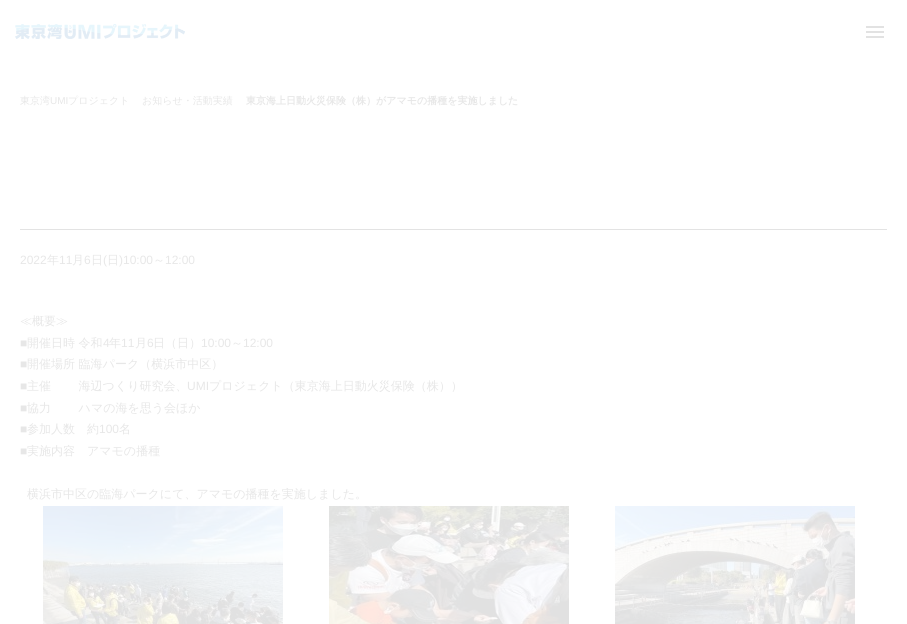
#include <cairo.h>
#include <math.h>
#include <stddef.h>


static void set_color(cairo_t *cr, unsigned color) {
    cairo_set_source_rgb(cr, (color >> 16) / 255.0, (color >> 8 & 255) / 255.0, (color & 255) / 255.0);
}

static void draw_text(cairo_t *cr, double x, double y, const char *s, const char *family, double size, int italic, int bold, unsigned color) {
    cairo_select_font_face(cr, family, italic ? CAIRO_FONT_SLANT_ITALIC : CAIRO_FONT_SLANT_NORMAL,
        bold ? CAIRO_FONT_WEIGHT_BOLD : CAIRO_FONT_WEIGHT_NORMAL);
    cairo_set_font_size(cr, size);
    set_color(cr, color);
    cairo_move_to(cr, x, y);
    cairo_show_text(cr, s);
}

static void fill_rect(cairo_t *cr, double x, double y, double w, double h, unsigned color) {
    set_color(cr, color);
    cairo_rectangle(cr, x, y, w, h);
    cairo_fill(cr);
}

static void draw_image(cairo_t *cr, const char *path, double x, double y, double w, double h) {
    cairo_surface_t *image = cairo_image_surface_create_from_png(path);
    cairo_save(cr);
    cairo_set_source_surface(cr, image, x, y);
    cairo_rectangle(cr, x, y, w, h);
    cairo_fill(cr);
    cairo_restore(cr);
    cairo_surface_destroy(image);
}

int main(void) {
    cairo_surface_t *surface = cairo_image_surface_create(CAIRO_FORMAT_RGB24, 907, 624);
    cairo_t *cr = cairo_create(surface);
    cairo_font_options_t *options = cairo_font_options_create();
    cairo_font_options_set_hint_metrics(options, CAIRO_HINT_METRICS_OFF);
    cairo_font_options_set_hint_style(options, CAIRO_HINT_STYLE_NONE);
    cairo_set_font_options(cr, options);
    cairo_set_miter_limit(cr, 4);
    set_color(cr, 0xFFFFFF);
    cairo_paint(cr);
    draw_image(cr, "assets/img1.png", 15, 24, 170, 15);
    draw_image(cr, "assets/img2.png", 866, 26, 18, 12);
    draw_text(cr, 20, 104, "東京湾", "WenQuanYi Zen Hei Medium", 10, 0, 0, 0xE7E7E7);
    draw_text(cr, 50, 104, "UMI", "Liberation Sans", 10, 0, 0, 0xE7E7E7);
    draw_text(cr, 68, 104, "プロジェクト", "WenQuanYi Zen Hei Medium", 10, 0, 0, 0xE7E7E7);
    draw_text(cr, 142, 104, "お知らせ・活動実績", "WenQuanYi Zen Hei Medium", 10, 0, 0, 0xE7E7E7);
    draw_text(cr, 246, 104, "東京海上日動火災保険（株）がアマモの播種を実施しました", "WenQuanYi Zen Hei", 10, 0, 1, 0xE7E7E7);
    fill_rect(cr, 20, 229, 867, 1, 0xE3E3E3);
    draw_text(cr, 20, 264, "2022", "Liberation Sans", 12, 0, 0, 0xE7E7E7);
    draw_text(cr, 47, 264, "年", "WenQuanYi Zen Hei Medium", 12, 0, 0, 0xE7E7E7);
    draw_text(cr, 59, 264, "11", "Liberation Sans", 12, 0, 0, 0xE7E7E7);
    draw_text(cr, 72, 264, "月", "WenQuanYi Zen Hei Medium", 12, 0, 0, 0xE7E7E7);
    draw_text(cr, 84, 264, "6", "Liberation Sans", 12, 0, 0, 0xE7E7E7);
    draw_text(cr, 91, 264, "日", "WenQuanYi Zen Hei Medium", 12, 0, 0, 0xE7E7E7);
    draw_text(cr, 103, 264, "(", "Liberation Sans", 12, 0, 0, 0xE7E7E7);
    draw_text(cr, 107, 264, "日", "WenQuanYi Zen Hei Medium", 12, 0, 0, 0xE7E7E7);
    draw_text(cr, 119, 264, ")10:00", "Liberation Sans", 12, 0, 0, 0xE7E7E7);
    draw_text(cr, 153, 264, "～", "WenQuanYi Zen Hei Medium", 12, 0, 0, 0xE7E7E7);
    draw_text(cr, 165, 264, "12:00", "Liberation Sans", 12, 0, 0, 0xE7E7E7);
    draw_text(cr, 20, 325, "≪概要≫", "WenQuanYi Zen Hei Medium", 12, 0, 0, 0xE7E7E7);
    draw_text(cr, 20, 347, "■", "Liberation Sans", 12, 0, 0, 0xE7E7E7);
    draw_text(cr, 27, 347, "開催日時 令和", "WenQuanYi Zen Hei Medium", 12, 0, 0, 0xE7E7E7);
    draw_text(cr, 103, 347, "4", "Liberation Sans", 12, 0, 0, 0xE7E7E7);
    draw_text(cr, 109, 347, "年", "WenQuanYi Zen Hei Medium", 12, 0, 0, 0xE7E7E7);
    draw_text(cr, 121, 347, "11", "Liberation Sans", 12, 0, 0, 0xE7E7E7);
    draw_text(cr, 135, 347, "月", "WenQuanYi Zen Hei Medium", 12, 0, 0, 0xE7E7E7);
    draw_text(cr, 147, 347, "6", "Liberation Sans", 12, 0, 0, 0xE7E7E7);
    draw_text(cr, 153, 347, "日（日）", "WenQuanYi Zen Hei Medium", 12, 0, 0, 0xE7E7E7);
    draw_text(cr, 201, 347, "10:00", "Liberation Sans", 12, 0, 0, 0xE7E7E7);
    draw_text(cr, 231, 347, "～", "WenQuanYi Zen Hei Medium", 12, 0, 0, 0xE7E7E7);
    draw_text(cr, 243, 347, "12:00", "Liberation Sans", 12, 0, 0, 0xE7E7E7);
    draw_text(cr, 20, 368, "■", "Liberation Sans", 12, 0, 0, 0xE7E7E7);
    draw_text(cr, 27, 368, "開催場所 臨海パーク（横浜市中区）", "WenQuanYi Zen Hei Medium", 12, 0, 0, 0xE7E7E7);
    draw_text(cr, 20, 390, "■", "Liberation Sans", 12, 0, 0, 0xE7E7E7);
    draw_text(cr, 27, 390, "主催　　 海辺つくり研究会、", "WenQuanYi Zen Hei Medium", 12, 0, 0, 0xE7E7E7);
    draw_text(cr, 187, 390, "UMI", "Liberation Sans", 12, 0, 0, 0xE7E7E7);
    draw_text(cr, 209, 390, "プロジェクト（東京海上日動火災保険（株））", "WenQuanYi Zen Hei Medium", 12, 0, 0, 0xE7E7E7);
    draw_text(cr, 20, 412, "■", "Liberation Sans", 12, 0, 0, 0xE7E7E7);
    draw_text(cr, 27, 412, "協力　　 ハマの海を思う会ほか", "WenQuanYi Zen Hei Medium", 12, 0, 0, 0xE7E7E7);
    draw_text(cr, 20, 433, "■", "Liberation Sans", 12, 0, 0, 0xE7E7E7);
    draw_text(cr, 27, 433, "参加人数　約", "WenQuanYi Zen Hei Medium", 12, 0, 0, 0xE7E7E7);
    draw_text(cr, 99, 433, "100", "Liberation Sans", 12, 0, 0, 0xE7E7E7);
    draw_text(cr, 119, 433, "名", "WenQuanYi Zen Hei Medium", 12, 0, 0, 0xE7E7E7);
    draw_text(cr, 20, 455, "■", "Liberation Sans", 12, 0, 0, 0xE7E7E7);
    draw_text(cr, 27, 455, "実施内容　アマモの播種", "WenQuanYi Zen Hei Medium", 12, 0, 0, 0xE7E7E7);
    draw_text(cr, 27, 498, "横浜市中区の臨海パークにて、アマモの播種を実施しました。", "WenQuanYi Zen Hei Medium", 12, 0, 0, 0xE7E7E7);
    draw_image(cr, "assets/img3.png", 43, 506, 240, 118);
    draw_image(cr, "assets/img4.png", 329, 506, 240, 118);
    draw_image(cr, "assets/img5.png", 615, 506, 240, 118);
    cairo_surface_write_to_png(surface, "output.png");
    cairo_font_options_destroy(options);
    cairo_destroy(cr);
    cairo_surface_destroy(surface);
    return 0;
}
